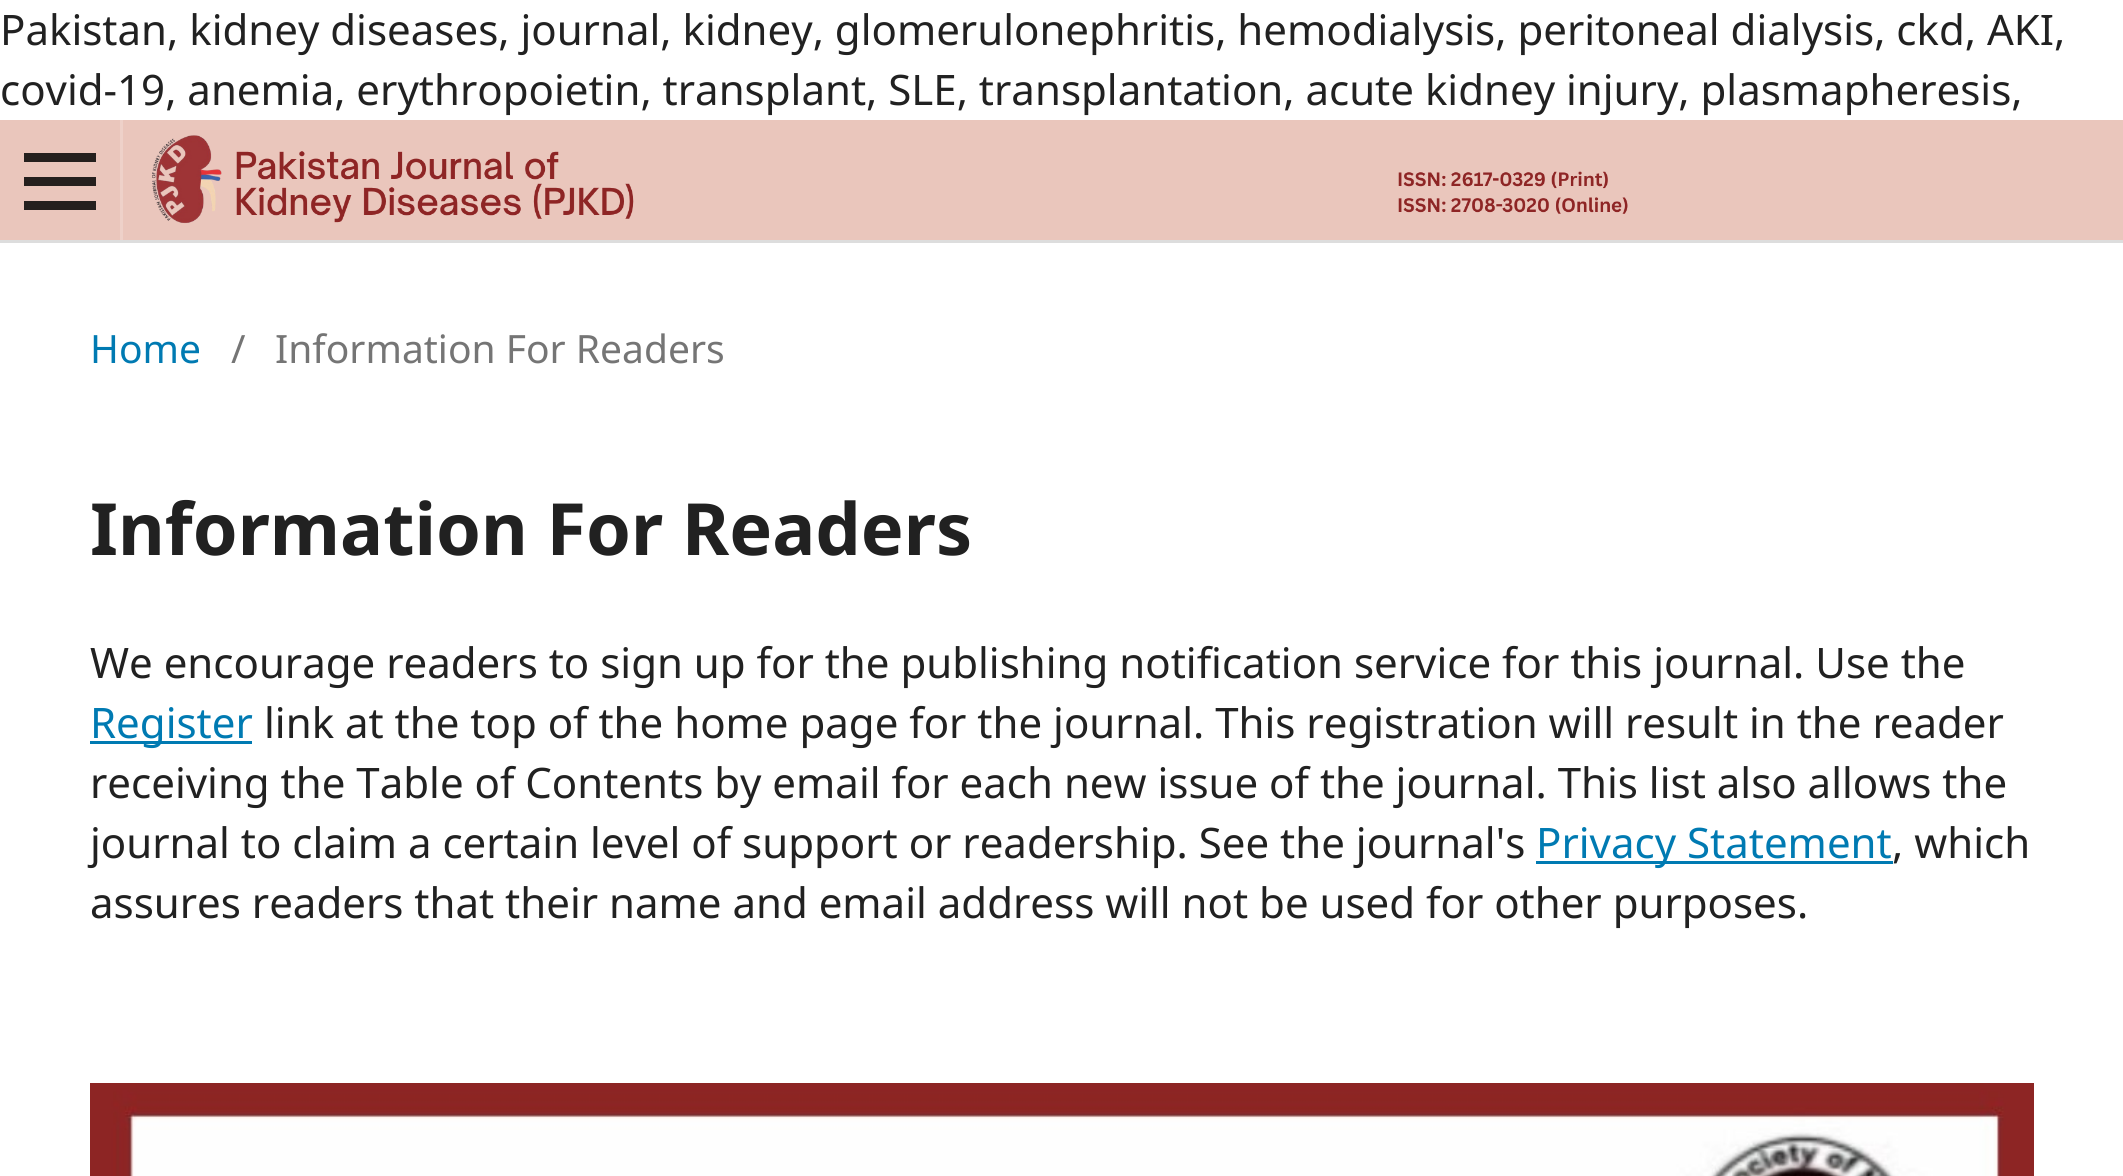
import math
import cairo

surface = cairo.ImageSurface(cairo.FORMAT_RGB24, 2123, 1176)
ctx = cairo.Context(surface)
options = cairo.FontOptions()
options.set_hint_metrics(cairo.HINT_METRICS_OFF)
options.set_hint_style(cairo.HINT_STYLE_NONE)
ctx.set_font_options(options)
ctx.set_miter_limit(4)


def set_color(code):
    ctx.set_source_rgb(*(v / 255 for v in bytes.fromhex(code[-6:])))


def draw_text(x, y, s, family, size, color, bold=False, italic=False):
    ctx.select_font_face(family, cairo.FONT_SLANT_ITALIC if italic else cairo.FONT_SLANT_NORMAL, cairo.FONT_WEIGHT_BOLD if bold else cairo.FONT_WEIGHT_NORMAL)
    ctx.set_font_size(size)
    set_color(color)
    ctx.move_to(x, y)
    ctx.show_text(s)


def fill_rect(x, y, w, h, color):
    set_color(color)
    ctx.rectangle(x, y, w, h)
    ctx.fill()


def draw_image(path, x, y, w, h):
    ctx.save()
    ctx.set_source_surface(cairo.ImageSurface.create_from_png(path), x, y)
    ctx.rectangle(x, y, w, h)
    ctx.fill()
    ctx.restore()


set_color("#ffffff")
ctx.paint()
draw_text(0, 45, "Pakistan, kidney diseases, journal, kidney, glomerulonephritis, hemodialysis, peritoneal dialysis, ckd, AKI,", "Noto Sans", 42, "#212121")
draw_text(0, 105, "covid-19, anemia, erythropoietin, transplant, SLE, transplantation, acute kidney injury, plasmapheresis,", "Noto Sans", 42, "#212121")
fill_rect(0, 120, 2123, 120, "#eac6bc")
fill_rect(0, 240, 2123, 3, "#dddddd")
fill_rect(120, 120, 3, 120, "#eed1c9")
fill_rect(24, 201, 72, 9, "#25201e")
fill_rect(24, 153, 72, 9, "#25201e")
fill_rect(24, 177, 72, 9, "#25201e")
draw_image("assets/img1.png", 152, 135, 1476, 89)
draw_text(90, 363, "Home", "Noto Sans", 39, "#007ab2")
draw_text(231, 363, "/", "Noto Sans", 39, "#757575")
draw_text(275, 363, "Information For Readers", "Noto Sans", 39, "#757575")
draw_text(90, 555, "Information For Readers", "Noto Sans", 72, "#212121", bold=True)
draw_text(90, 678, "We encourage readers to sign up for the publishing notification service for this journal. Use the", "Noto Sans", 42, "#212121")
fill_rect(90, 741, 162, 3, "#007ab2")
draw_text(90, 738, "Register", "Noto Sans", 42, "#007ab2")
draw_text(264, 738, "link at the top of the home page for the journal. This registration will result in the reader", "Noto Sans", 42, "#212121")
draw_text(90, 798, "receiving the Table of Contents by email for each new issue of the journal. This list also allows the", "Noto Sans", 42, "#212121")
draw_text(90, 858, "journal to claim a certain level of support or readership. See the journal's", "Noto Sans", 42, "#212121")
fill_rect(1536, 861, 357, 3, "#007ab2")
draw_text(1536, 858, "Privacy Statement", "Noto Sans", 42, "#007ab2")
draw_text(1892, 858, ", which", "Noto Sans", 42, "#212121")
draw_text(90, 918, "assures readers that their name and email address will not be used for other purposes.", "Noto Sans", 42, "#212121")
draw_image("assets/img2.png", 90, 1083, 1944, 93)
surface.write_to_png("output.png")
